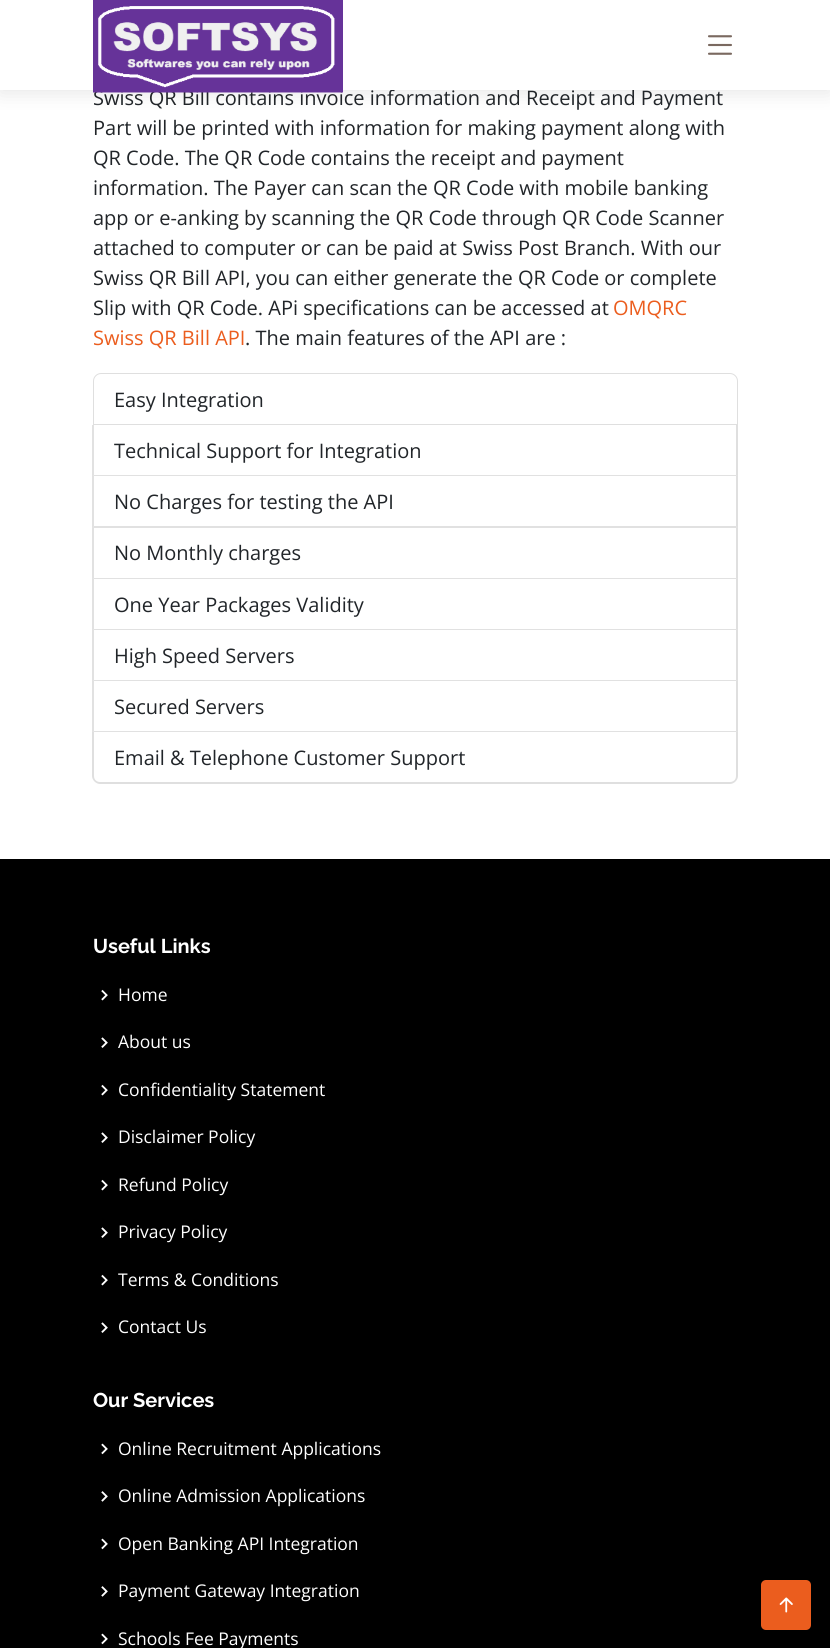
import math
import cairo

surface = cairo.ImageSurface(cairo.FORMAT_RGB24, 830, 1648)
ctx = cairo.Context(surface)
options = cairo.FontOptions()
options.set_hint_metrics(cairo.HINT_METRICS_OFF)
options.set_hint_style(cairo.HINT_STYLE_NONE)
ctx.set_font_options(options)
ctx.set_miter_limit(4)


def set_color(code):
    ctx.set_source_rgb(*(v / 255 for v in bytes.fromhex(code[-6:])))


def draw_text(x, y, s, family, size, color, bold=False, italic=False):
    ctx.select_font_face(family, cairo.FONT_SLANT_ITALIC if italic else cairo.FONT_SLANT_NORMAL, cairo.FONT_WEIGHT_BOLD if bold else cairo.FONT_WEIGHT_NORMAL)
    ctx.set_font_size(size)
    set_color(color)
    ctx.move_to(x, y)
    ctx.show_text(s)


def fill_rect(x, y, w, h, color):
    set_color(color)
    ctx.rectangle(x, y, w, h)
    ctx.fill()


def rounded_rect(x, y, w, h, r):
    ctx.new_sub_path()
    for i, (u, v) in enumerate([(x + w - r, y + h - r), (x + r, y + h - r), (x + r, y + r), (x + w - r, y + r)]):
        ctx.arc(u, v, r, i * math.pi / 2, (i + 1) * math.pi / 2)
    ctx.close_path()


def draw_shadow(x, y, w, h, r, blur, alpha):
    ctx.push_group_with_content(cairo.CONTENT_ALPHA)
    ctx.set_operator(cairo.OPERATOR_SOURCE)
    for i in range(15, -16, -2):
        e = blur * i / 6
        if min(w, h) + 2 * e > 0:
            ctx.set_source_rgba(0, 0, 0, alpha * math.erfc((i - 1) / 8.5) / 2)
            rounded_rect(x - e, y - e, w + 2 * e, h + 2 * e, max(0, min(r + e + blur * .6, min(w, h) / 2 + e)))
            ctx.fill()
    ctx.mask(ctx.pop_group())


def draw_image(path, x, y, w, h):
    ctx.save()
    ctx.set_source_surface(cairo.ImageSurface.create_from_png(path), x, y)
    ctx.rectangle(x, y, w, h)
    ctx.fill()
    ctx.restore()


set_color("#ffffff")
ctx.paint()
set_color("#000000")
draw_shadow(0, 3, 830, 90, 0, 9.5, 0.1)
draw_text(93, 105, "Swiss QR Bill contains invoice information and Receipt and Payment", "Open Sans", 20, "#212529")
fill_rect(0, 0, 830, 90, "#ffffff")
draw_image("assets/img1.png", 93, 0, 250, 93)
draw_image("assets/img2.png", 708, 35, 24, 20)
draw_text(93, 135, "Part will be printed with information for making payment along with", "Open Sans", 20, "#212529")
draw_text(93, 165, "QR Code. The QR Code contains the receipt and payment", "Open Sans", 20, "#212529")
draw_text(93, 195, "information. The Payer can scan the QR Code with mobile banking", "Open Sans", 20, "#212529")
draw_text(93, 225, "app or e-anking by scanning the QR Code through QR Code Scanner", "Open Sans", 20, "#212529")
draw_text(93, 255, "attached to computer or can be paid at Swiss Post Branch. With our", "Open Sans", 20, "#212529")
draw_text(93, 285, "Swiss QR Bill API, you can either generate the QR Code or complete", "Open Sans", 20, "#212529")
draw_text(93, 315, "Slip with QR Code. APi specifications can be accessed at", "Open Sans", 20, "#212529")
draw_text(613, 315, "OMQRC", "Open Sans", 20, "#eb5d1e")
draw_text(93, 345, "Swiss QR Bill API", "Open Sans", 20, "#eb5d1e")
draw_text(245, 345, ". The main features of the API are :", "Open Sans", 20, "#212529")
ctx.new_path()
ctx.move_to(101, 373.5)
ctx.line_to(730, 373.5)
ctx.curve_to(734, 373.5, 737.5, 377, 737.5, 381)
ctx.line_to(737.5, 424.5)
ctx.line_to(93.5, 424.5)
ctx.line_to(93.5, 381)
ctx.curve_to(93.5, 377, 97, 373.5, 101, 373.5)
ctx.close_path()
set_color("#dfdfdf")
ctx.set_line_width(1)
ctx.stroke()
draw_text(114, 407, "Easy Integration", "Open Sans", 20, "#212529")
set_color("#dfdfdf")
ctx.new_path()
ctx.move_to(738, 425)
ctx.line_to(738, 476)
ctx.line_to(736, 475)
ctx.line_to(736, 425)
ctx.close_path()
ctx.fill()
ctx.set_source_rgba(0, 0, 0, 0.12)
ctx.new_path()
ctx.move_to(738, 476)
ctx.line_to(92, 476)
ctx.line_to(94, 475)
ctx.line_to(736, 475)
ctx.close_path()
ctx.fill()
ctx.new_path()
ctx.move_to(92, 476)
ctx.line_to(92, 425)
ctx.line_to(94, 425)
ctx.line_to(94, 475)
ctx.close_path()
ctx.fill()
draw_text(114, 458, "Technical Support for Integration", "Open Sans", 20, "#212529")
set_color("#dfdfdf")
ctx.new_path()
ctx.move_to(738, 476)
ctx.line_to(738, 528)
ctx.line_to(736, 526)
ctx.line_to(736, 476)
ctx.close_path()
ctx.fill()
ctx.set_source_rgba(0, 0, 0, 0.12)
ctx.new_path()
ctx.move_to(738, 528)
ctx.line_to(92, 528)
ctx.line_to(94, 526)
ctx.line_to(736, 526)
ctx.close_path()
ctx.fill()
ctx.new_path()
ctx.move_to(92, 528)
ctx.line_to(92, 476)
ctx.line_to(94, 476)
ctx.line_to(94, 526)
ctx.close_path()
ctx.fill()
draw_text(114, 509, "No Charges for testing the API", "Open Sans", 20, "#212529")
set_color("#dfdfdf")
ctx.new_path()
ctx.move_to(738, 528)
ctx.line_to(738, 579)
ctx.line_to(736, 578)
ctx.line_to(736, 528)
ctx.close_path()
ctx.fill()
ctx.set_source_rgba(0, 0, 0, 0.12)
ctx.new_path()
ctx.move_to(738, 579)
ctx.line_to(92, 579)
ctx.line_to(94, 578)
ctx.line_to(736, 578)
ctx.close_path()
ctx.fill()
ctx.new_path()
ctx.move_to(92, 579)
ctx.line_to(92, 528)
ctx.line_to(94, 528)
ctx.line_to(94, 578)
ctx.close_path()
ctx.fill()
draw_text(114, 560, "No Monthly charges", "Open Sans", 20, "#212529")
set_color("#dfdfdf")
ctx.new_path()
ctx.move_to(738, 579)
ctx.line_to(738, 630)
ctx.line_to(736, 629)
ctx.line_to(736, 579)
ctx.close_path()
ctx.fill()
ctx.set_source_rgba(0, 0, 0, 0.12)
ctx.new_path()
ctx.move_to(738, 630)
ctx.line_to(92, 630)
ctx.line_to(94, 629)
ctx.line_to(736, 629)
ctx.close_path()
ctx.fill()
ctx.new_path()
ctx.move_to(92, 630)
ctx.line_to(92, 579)
ctx.line_to(94, 579)
ctx.line_to(94, 629)
ctx.close_path()
ctx.fill()
draw_text(114, 612, "One Year Packages Validity", "Open Sans", 20, "#212529")
set_color("#dfdfdf")
ctx.new_path()
ctx.move_to(738, 630)
ctx.line_to(738, 681)
ctx.line_to(736, 680)
ctx.line_to(736, 630)
ctx.close_path()
ctx.fill()
ctx.set_source_rgba(0, 0, 0, 0.12)
ctx.new_path()
ctx.move_to(738, 681)
ctx.line_to(92, 681)
ctx.line_to(94, 680)
ctx.line_to(736, 680)
ctx.close_path()
ctx.fill()
ctx.new_path()
ctx.move_to(92, 681)
ctx.line_to(92, 630)
ctx.line_to(94, 630)
ctx.line_to(94, 680)
ctx.close_path()
ctx.fill()
draw_text(114, 663, "High Speed Servers", "Open Sans", 20, "#212529")
set_color("#dfdfdf")
ctx.new_path()
ctx.move_to(738, 681)
ctx.line_to(738, 732)
ctx.line_to(736, 731)
ctx.line_to(736, 681)
ctx.close_path()
ctx.fill()
ctx.set_source_rgba(0, 0, 0, 0.12)
ctx.new_path()
ctx.move_to(738, 732)
ctx.line_to(92, 732)
ctx.line_to(94, 731)
ctx.line_to(736, 731)
ctx.close_path()
ctx.fill()
ctx.new_path()
ctx.move_to(92, 732)
ctx.line_to(92, 681)
ctx.line_to(94, 681)
ctx.line_to(94, 731)
ctx.close_path()
ctx.fill()
draw_text(114, 714, "Secured Servers", "Open Sans", 20, "#212529")
set_color("#dfdfdf")
ctx.set_fill_rule(cairo.FILL_RULE_EVEN_ODD)
ctx.new_path()
ctx.move_to(92, 732)
ctx.line_to(738, 732)
ctx.line_to(738, 776)
ctx.curve_to(738, 780, 734, 784, 730, 784)
ctx.line_to(100, 784)
ctx.curve_to(96, 784, 92, 780, 92, 776)
ctx.close_path()
ctx.move_to(94, 732)
ctx.line_to(736, 732)
ctx.line_to(736, 776)
ctx.curve_to(736, 780, 733, 782, 730, 782)
ctx.line_to(100, 782)
ctx.curve_to(97, 782, 94, 780, 94, 776)
ctx.close_path()
ctx.fill()
draw_text(114, 765, "Email & Telephone Customer Support", "Open Sans", 20, "#212529")
fill_rect(0, 859, 830, 789, "#000000")
draw_text(93, 953, "Useful Links", "Raleway", 20, "#ffffff", bold=True)
draw_image("assets/img3.png", 101, 989, 7, 12)
draw_text(118, 1001, "Home", "Open Sans", 17.5, "#ffffff")
draw_image("assets/img4.png", 101, 1037, 7, 11)
draw_text(118, 1048, "About us", "Open Sans", 17.5, "#ffffff")
draw_image("assets/img3.png", 101, 1084, 7, 12)
draw_text(118, 1096, "Confidentiality Statement", "Open Sans", 17.5, "#ffffff")
draw_image("assets/img4.png", 101, 1132, 7, 11)
draw_text(118, 1143, "Disclaimer Policy", "Open Sans", 17.5, "#ffffff")
draw_image("assets/img3.png", 101, 1179, 7, 12)
draw_text(118, 1191, "Refund Policy", "Open Sans", 17.5, "#ffffff")
draw_image("assets/img4.png", 101, 1227, 7, 11)
draw_text(118, 1238, "Privacy Policy", "Open Sans", 17.5, "#ffffff")
draw_image("assets/img3.png", 101, 1274, 7, 12)
draw_text(118, 1286, "Terms & Conditions", "Open Sans", 17.5, "#ffffff")
draw_image("assets/img4.png", 101, 1322, 7, 11)
draw_text(118, 1333, "Contact Us", "Open Sans", 17.5, "#ffffff")
draw_text(93, 1407, "Our Services", "Raleway", 20, "#ffffff", bold=True)
draw_image("assets/img5.png", 101, 1443, 7, 12)
draw_text(118, 1455, "Online Recruitment Applications", "Open Sans", 17.5, "#ffffff")
draw_image("assets/img6.png", 101, 1491, 7, 11)
draw_text(118, 1502, "Online Admission Applications", "Open Sans", 17.5, "#ffffff")
draw_image("assets/img5.png", 101, 1538, 7, 12)
draw_text(118, 1550, "Open Banking API Integration", "Open Sans", 17.5, "#ffffff")
draw_image("assets/img6.png", 101, 1586, 7, 11)
draw_text(118, 1597, "Payment Gateway Integration", "Open Sans", 17.5, "#ffffff")
draw_image("assets/img5.png", 101, 1633, 7, 12)
draw_text(118, 1645, "Schools Fee Payments", "Open Sans", 17.5, "#ffffff")
set_color("#eb5d1e")
rounded_rect(761, 1580, 50, 50, 5)
ctx.fill()
draw_image("assets/img7.png", 779, 1597, 14, 16)
surface.write_to_png("output.png")
